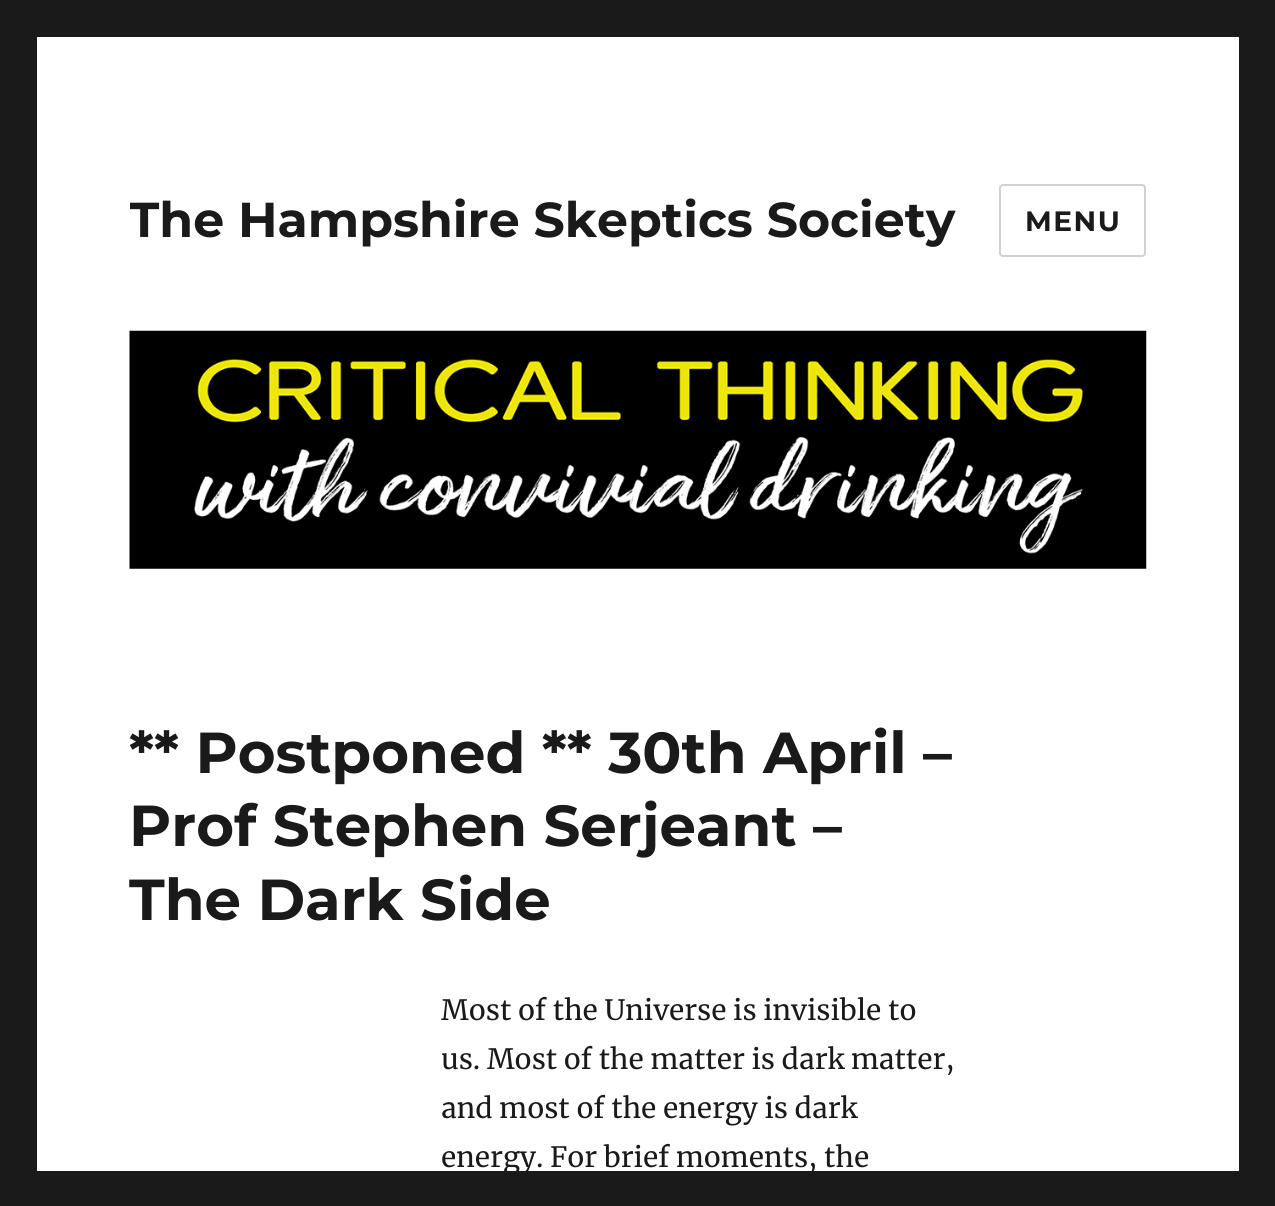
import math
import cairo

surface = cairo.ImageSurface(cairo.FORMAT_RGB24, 1275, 1206)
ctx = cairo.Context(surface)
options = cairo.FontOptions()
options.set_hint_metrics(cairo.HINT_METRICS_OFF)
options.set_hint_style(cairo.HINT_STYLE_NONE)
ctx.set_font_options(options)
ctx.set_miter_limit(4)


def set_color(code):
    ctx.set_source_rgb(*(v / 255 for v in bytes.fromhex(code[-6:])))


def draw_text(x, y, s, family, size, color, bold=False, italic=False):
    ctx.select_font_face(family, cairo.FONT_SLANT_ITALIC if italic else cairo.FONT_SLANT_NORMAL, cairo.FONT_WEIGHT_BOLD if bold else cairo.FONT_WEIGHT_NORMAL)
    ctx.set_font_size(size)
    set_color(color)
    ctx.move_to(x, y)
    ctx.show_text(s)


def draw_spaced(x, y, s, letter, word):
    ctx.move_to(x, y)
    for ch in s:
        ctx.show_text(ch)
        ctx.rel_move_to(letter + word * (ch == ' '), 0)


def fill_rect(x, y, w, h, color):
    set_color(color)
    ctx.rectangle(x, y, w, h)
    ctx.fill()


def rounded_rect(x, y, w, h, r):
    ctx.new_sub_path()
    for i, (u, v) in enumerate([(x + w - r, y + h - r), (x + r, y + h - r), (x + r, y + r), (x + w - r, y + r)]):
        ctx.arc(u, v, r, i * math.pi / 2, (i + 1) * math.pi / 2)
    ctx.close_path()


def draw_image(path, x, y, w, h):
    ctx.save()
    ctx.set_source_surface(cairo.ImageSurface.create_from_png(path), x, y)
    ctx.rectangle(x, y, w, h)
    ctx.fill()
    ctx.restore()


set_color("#1a1a1a")
ctx.paint()
fill_rect(37, 37, 1202, 1134, "#ffffff")
ctx.save()
ctx.rectangle(130, 191, 826, 61)
ctx.clip()
draw_text(129, 237, "The Hampshire Skeptics Society", "Montserrat Thin", 49, "#1a1a1a")
ctx.restore()
rounded_rect(1000, 185, 145, 71, 3)
set_color("#d1d1d1")
ctx.stroke()
ctx.select_font_face("Montserrat Thin")
ctx.set_font_size(28)
set_color("#1a1a1a")
draw_spaced(1025, 231, "MENU", 1.5, 0)
draw_image("assets/img1.png", 129, 330, 1018, 239)
draw_text(129, 773, "** Postponed ** 30th April –", "Montserrat Thin", 57.75, "#1a1a1a")
draw_text(129, 846, "Prof Stephen Serjeant –", "Montserrat Thin", 57.75, "#1a1a1a")
draw_text(129, 920, "The Dark Side", "Montserrat Thin", 57.75, "#1a1a1a")
draw_text(441, 1020, "Most of the Universe is invisible to", "Merriweather", 28, "#1a1a1a")
draw_text(441, 1069, "us. Most of the matter is dark matter,", "Merriweather", 28, "#1a1a1a")
draw_text(441, 1118, "and most of the energy is dark", "Merriweather", 28, "#1a1a1a")
draw_text(441, 1167, "energy. For brief moments, the", "Merriweather", 28, "#1a1a1a")
surface.write_to_png("output.png")
